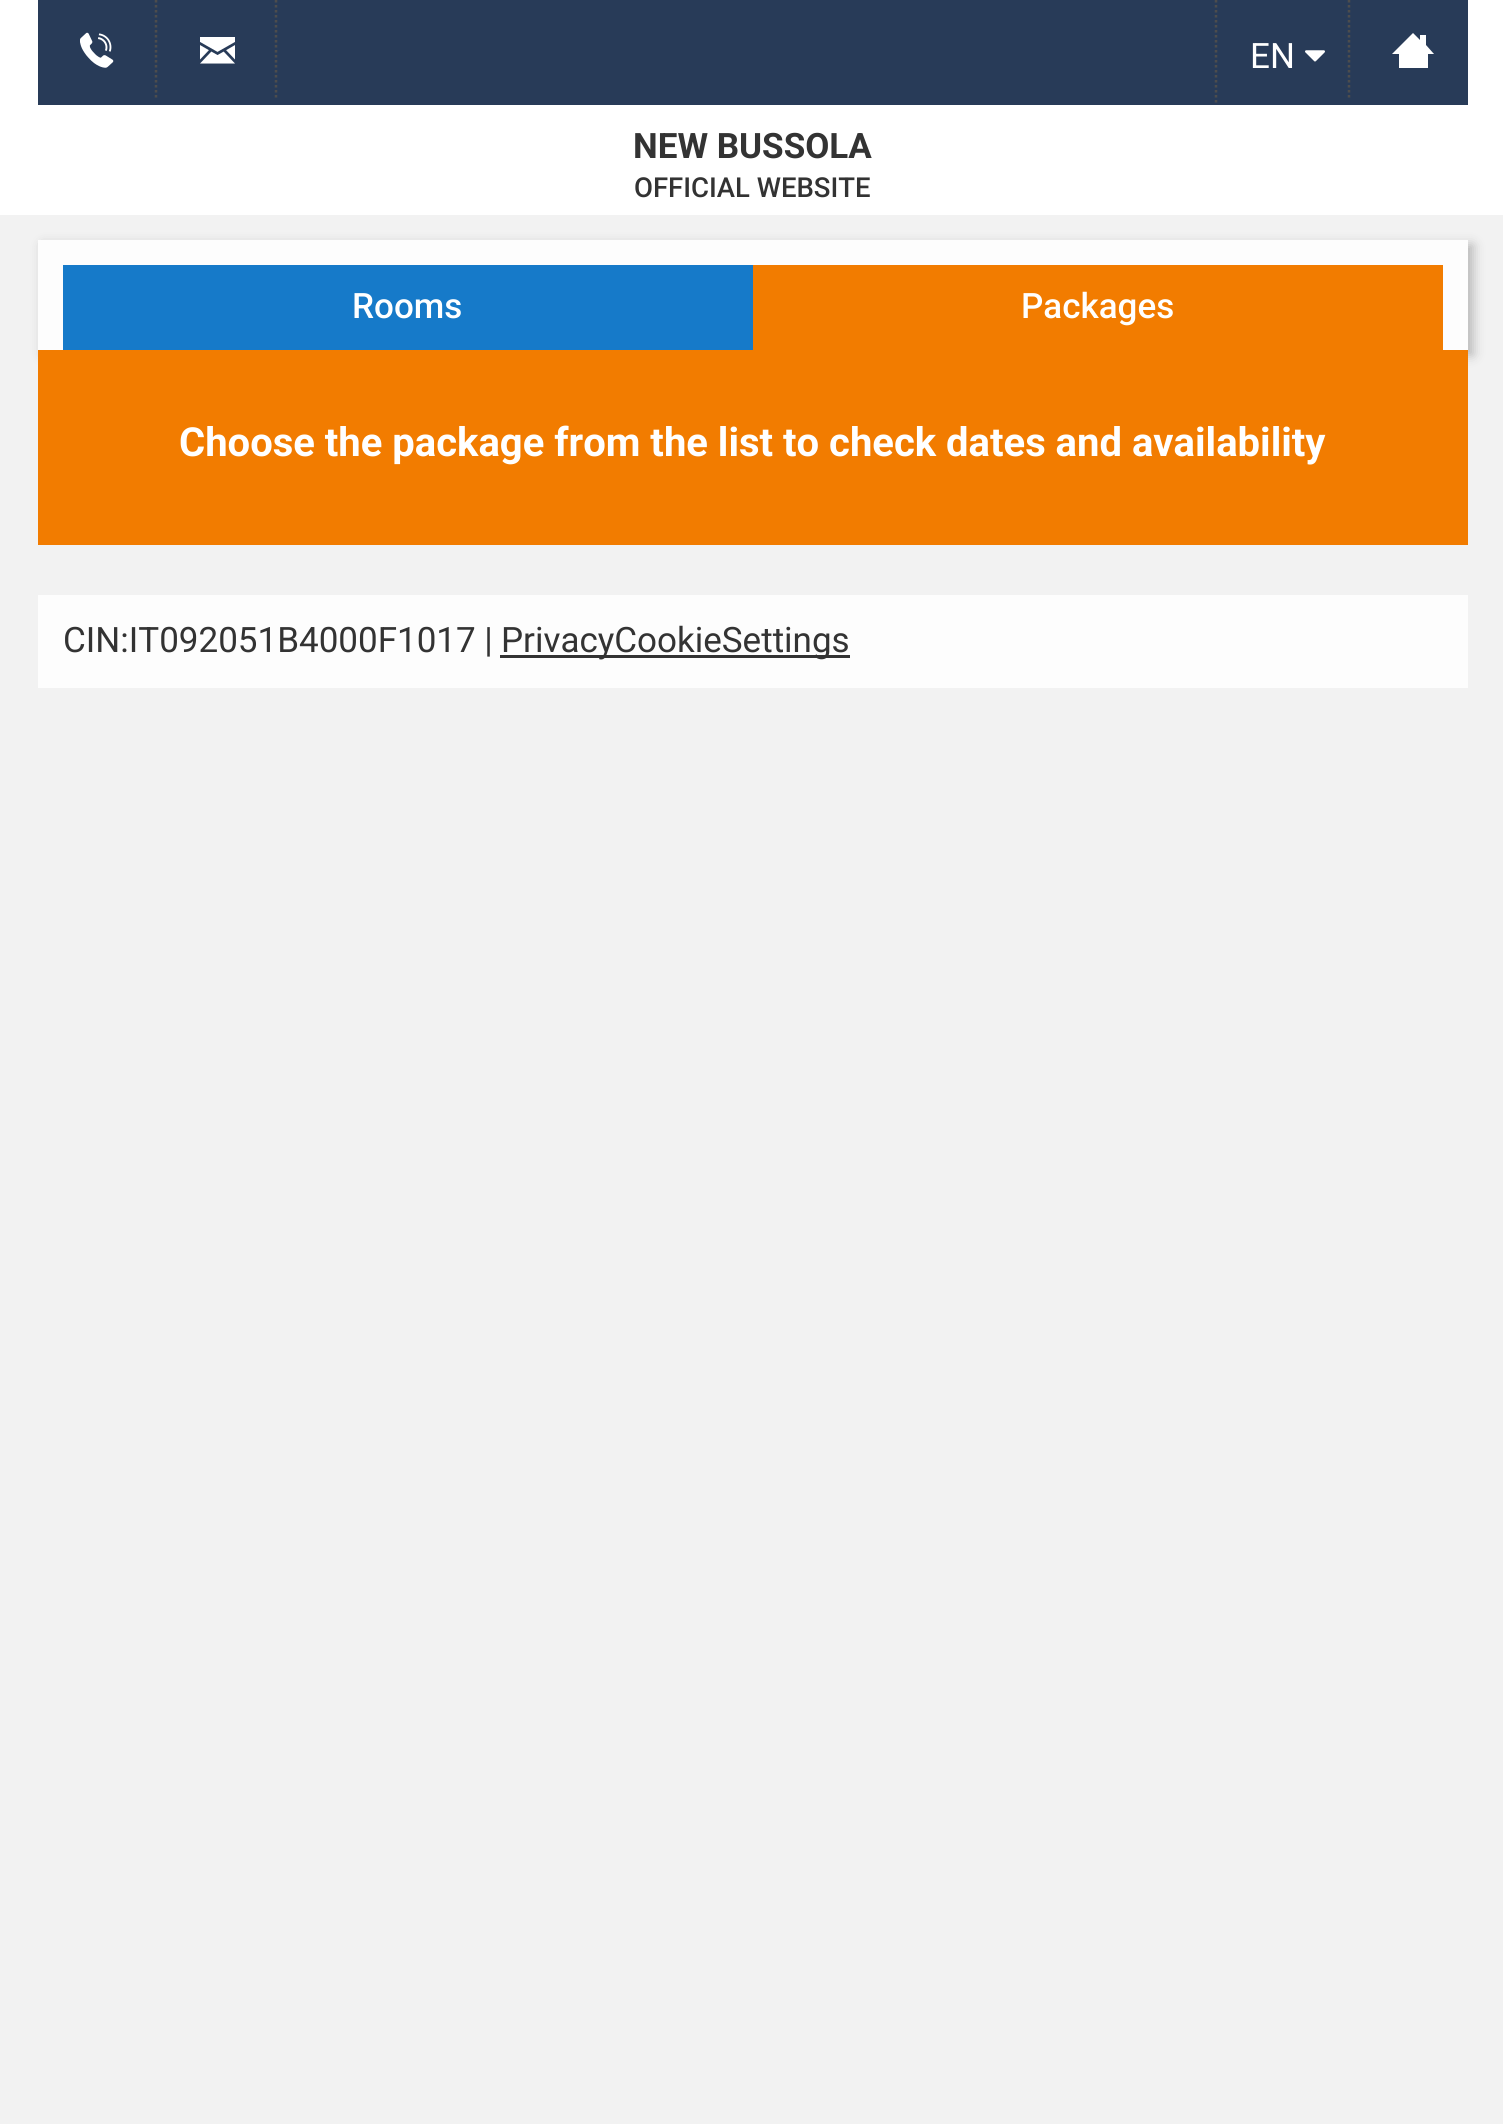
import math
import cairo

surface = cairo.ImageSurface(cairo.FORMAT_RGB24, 1503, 2124)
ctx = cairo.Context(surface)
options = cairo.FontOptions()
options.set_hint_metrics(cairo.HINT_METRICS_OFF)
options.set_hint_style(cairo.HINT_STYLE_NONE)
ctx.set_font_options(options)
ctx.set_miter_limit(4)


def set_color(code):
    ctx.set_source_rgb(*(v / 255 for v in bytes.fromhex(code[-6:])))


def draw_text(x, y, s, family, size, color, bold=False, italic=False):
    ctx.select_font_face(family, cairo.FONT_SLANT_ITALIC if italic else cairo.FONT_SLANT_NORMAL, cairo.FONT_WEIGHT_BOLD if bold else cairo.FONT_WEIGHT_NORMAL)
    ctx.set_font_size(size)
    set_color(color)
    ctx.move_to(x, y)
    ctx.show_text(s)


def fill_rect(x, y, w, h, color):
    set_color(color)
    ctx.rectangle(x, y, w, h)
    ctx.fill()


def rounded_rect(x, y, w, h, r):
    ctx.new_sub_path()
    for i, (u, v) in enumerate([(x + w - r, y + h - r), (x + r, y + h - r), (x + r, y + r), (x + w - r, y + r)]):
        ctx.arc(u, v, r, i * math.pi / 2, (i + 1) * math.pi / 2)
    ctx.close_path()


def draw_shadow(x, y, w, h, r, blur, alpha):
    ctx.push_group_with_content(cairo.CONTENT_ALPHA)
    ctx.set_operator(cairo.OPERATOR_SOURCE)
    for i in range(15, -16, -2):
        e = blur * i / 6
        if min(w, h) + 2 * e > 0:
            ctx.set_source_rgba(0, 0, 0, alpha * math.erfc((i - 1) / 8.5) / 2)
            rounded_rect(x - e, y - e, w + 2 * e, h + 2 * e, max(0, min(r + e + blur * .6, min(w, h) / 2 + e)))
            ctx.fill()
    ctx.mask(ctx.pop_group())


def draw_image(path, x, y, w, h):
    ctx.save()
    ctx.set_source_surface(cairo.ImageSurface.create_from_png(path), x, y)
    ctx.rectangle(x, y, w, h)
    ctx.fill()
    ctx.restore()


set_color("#f2f2f2")
ctx.paint()
fill_rect(0, 0, 1503, 215, "#ffffff")
fill_rect(38, 0, 1430, 105, "#283b58")
ctx.new_path()
ctx.move_to(156, 0)
ctx.line_to(156, 100)
set_color("#4d4d4d")
ctx.set_line_width(2.5)
ctx.set_dash([2.5, 2.5])
ctx.stroke()
draw_image("assets/img1.png", 80, 32, 34, 36)
ctx.new_path()
ctx.move_to(276, 0)
ctx.line_to(276, 100)
ctx.stroke()
draw_image("assets/img2.png", 200, 37, 35, 27)
ctx.new_path()
ctx.move_to(1216, 0)
ctx.line_to(1216, 105)
ctx.stroke()
draw_text(1250, 68, "EN", "Roboto", 35, "#ffffff")
draw_image("assets/img3.png", 1305, 50, 20, 12)
ctx.new_path()
ctx.move_to(1349, 0)
ctx.line_to(1349, 100)
set_color("#4d4d4d")
ctx.stroke()
set_color("#ffffff")
ctx.new_path()
ctx.move_to(1392, 54)
ctx.line_to(1399, 54)
ctx.line_to(1399, 68)
ctx.line_to(1428, 68)
ctx.line_to(1428, 54)
ctx.line_to(1434, 54)
ctx.line_to(1426, 45)
ctx.line_to(1426, 35)
ctx.line_to(1420, 35)
ctx.line_to(1420, 40)
ctx.line_to(1413, 33)
ctx.close_path()
ctx.fill()
draw_text(633, 158, "NEW BUSSOLA", "Roboto", 35, "#333333", bold=True)
draw_text(634, 197, "OFFICIAL WEBSITE", "Roboto Medium", 27.5, "#333333")
ctx.save()
ctx.set_fill_rule(cairo.FILL_RULE_EVEN_ODD)
ctx.new_path()
ctx.move_to(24, 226)
ctx.line_to(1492, 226)
ctx.line_to(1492, 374)
ctx.line_to(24, 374)
ctx.close_path()
ctx.move_to(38, 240)
ctx.line_to(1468, 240)
ctx.line_to(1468, 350)
ctx.line_to(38, 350)
ctx.close_path()
ctx.clip()
set_color("#000000")
draw_shadow(43, 245, 1430, 110, 0, 6, 0.25)
ctx.restore()
ctx.set_source_rgba(1, 1, 1, 0.85)
ctx.rectangle(38, 240, 1430, 110)
ctx.fill()
fill_rect(63, 265, 690, 85, "#167ac9")
draw_text(352, 318, "Rooms", "Roboto Medium", 35, "#ffffff")
fill_rect(753, 265, 690, 85, "#f27c00")
draw_text(1021, 318, "Packages", "Roboto Medium", 35, "#ffffff")
fill_rect(38, 350, 1430, 195, "#f27c00")
draw_text(179, 456, "Choose the package from the list to check dates and availability", "Roboto", 40, "#ffffff", bold=True)
fill_rect(38, 595, 1430, 93, "#fdfdfd")
draw_text(63, 652, "CIN:IT092051B4000F1017 |", "Roboto", 35, "#333333")
fill_rect(500, 655, 350, 3, "#333333")
draw_text(501, 652, "PrivacyCookieSettings", "Roboto", 35, "#333333")
surface.write_to_png("output.png")
